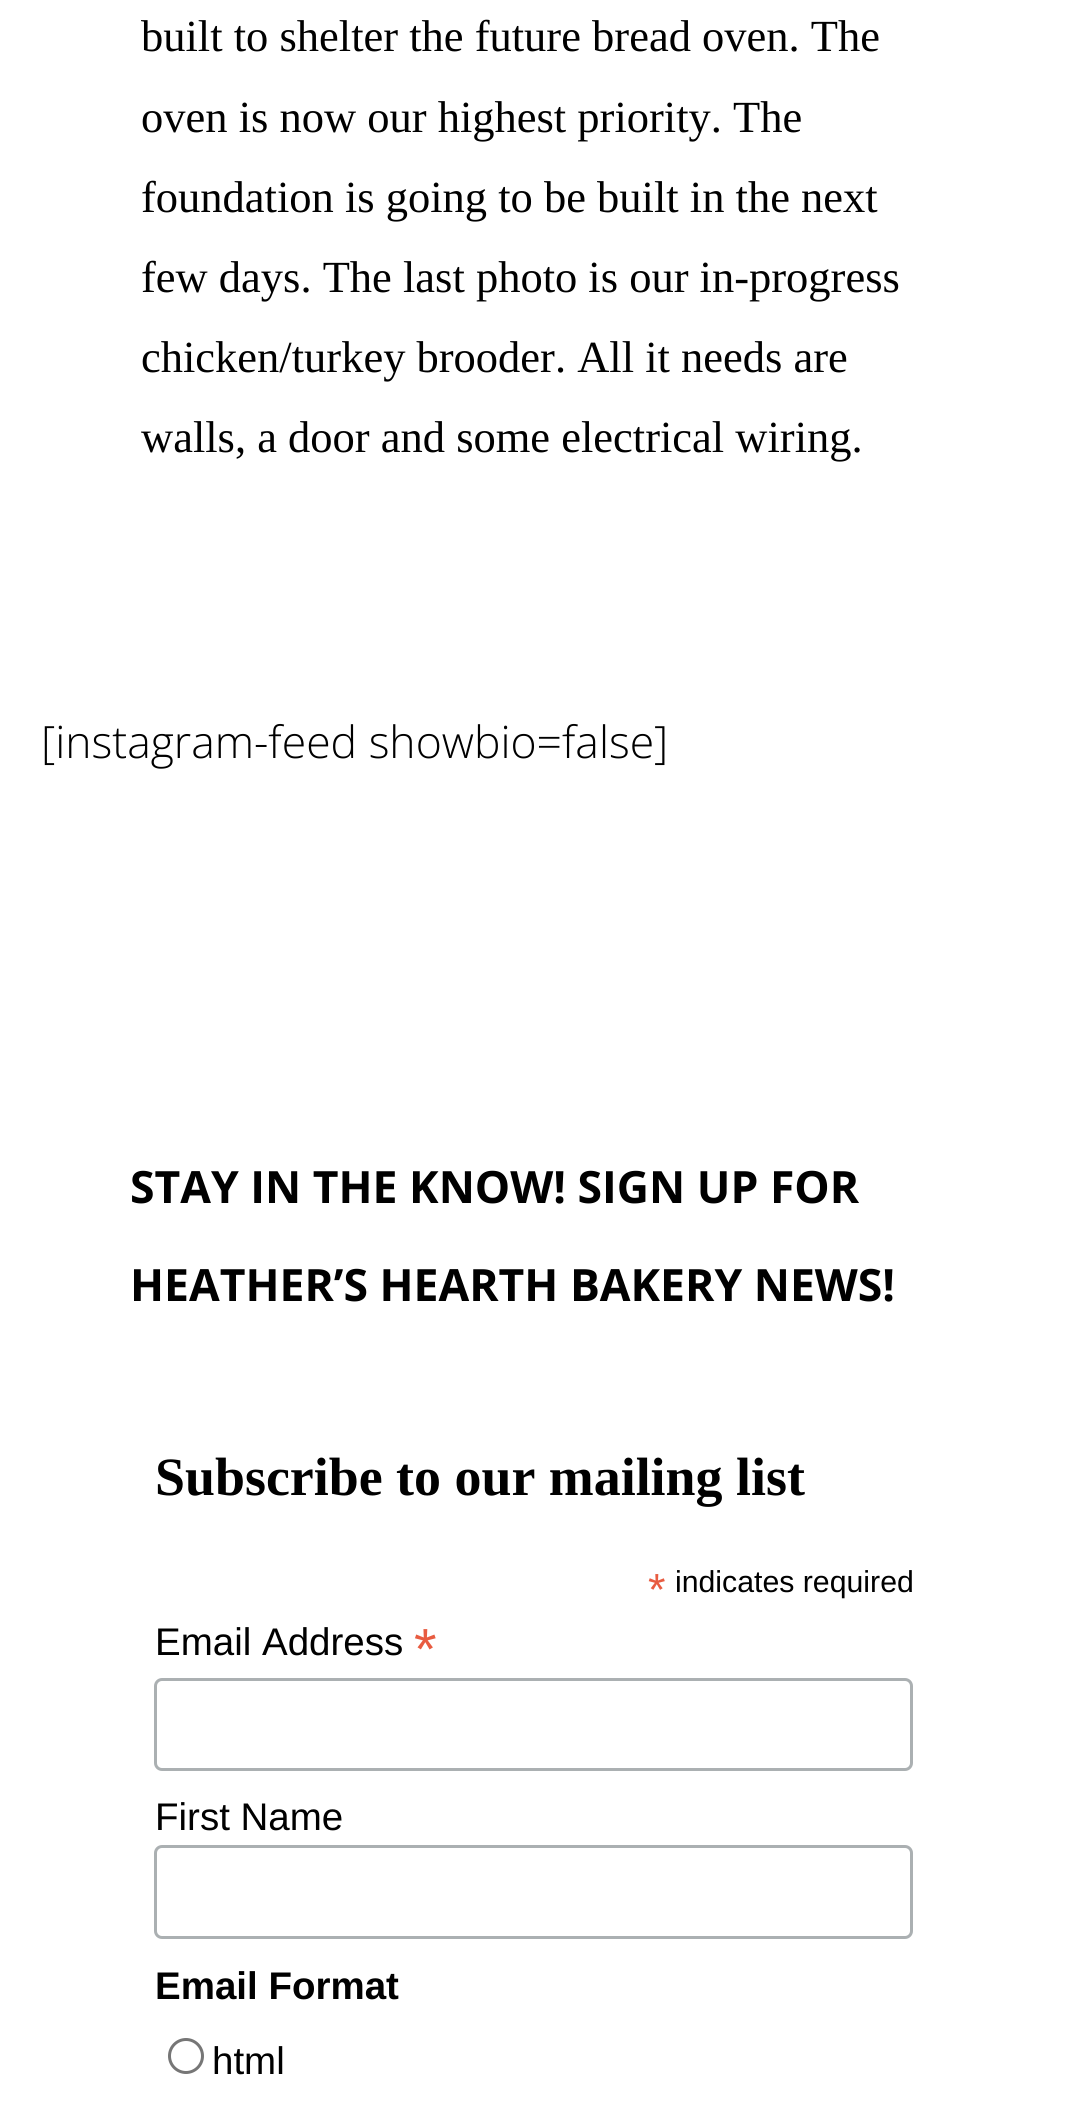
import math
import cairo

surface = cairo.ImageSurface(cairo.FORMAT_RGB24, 1073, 2105)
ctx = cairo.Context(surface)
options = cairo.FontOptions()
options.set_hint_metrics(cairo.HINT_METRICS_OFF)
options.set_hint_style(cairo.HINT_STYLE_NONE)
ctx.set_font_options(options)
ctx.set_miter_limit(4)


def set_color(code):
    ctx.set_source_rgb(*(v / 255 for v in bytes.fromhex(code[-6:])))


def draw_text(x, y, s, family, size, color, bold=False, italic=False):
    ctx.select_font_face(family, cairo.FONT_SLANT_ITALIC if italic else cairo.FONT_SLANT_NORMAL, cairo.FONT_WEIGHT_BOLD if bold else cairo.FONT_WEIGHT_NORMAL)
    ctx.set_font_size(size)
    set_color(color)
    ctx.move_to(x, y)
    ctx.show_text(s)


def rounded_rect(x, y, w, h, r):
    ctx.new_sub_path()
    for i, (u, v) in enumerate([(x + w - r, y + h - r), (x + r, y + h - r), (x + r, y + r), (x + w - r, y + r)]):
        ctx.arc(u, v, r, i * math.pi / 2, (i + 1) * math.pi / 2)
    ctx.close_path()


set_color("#ffffff")
ctx.paint()
draw_text(141, 51, "built to shelter the future bread oven. The", "Liberation Serif", 44.5, "#000000")
draw_text(141, 132, "oven is now our highest priority. The", "Liberation Serif", 44.5, "#000000")
draw_text(141, 212, "foundation is going to be built in the next", "Liberation Serif", 44.5, "#000000")
draw_text(141, 292, "few days. The last photo is our in-progress", "Liberation Serif", 44.5, "#000000")
draw_text(141, 372, "chicken/turkey brooder. All it needs are", "Liberation Serif", 44.5, "#000000")
draw_text(141, 452, "walls, a door and some electrical wiring.", "Liberation Serif", 44.5, "#000000")
draw_text(41, 758, "[instagram-feed showbio=false]", "Open Sans Light", 44.5, "#000000")
draw_text(130, 1203, "STAY IN THE KNOW! SIGN UP FOR", "Open Sans", 44.5, "#000000", bold=True)
draw_text(130, 1301, "HEATHER’S HEARTH BAKERY NEWS!", "Open Sans", 44.5, "#000000", bold=True)
draw_text(155, 1495, "Subscribe to our mailing list", "Liberation Serif", 53.9, "#000000", bold=True)
draw_text(648, 1605, "*", "Liberation Sans", 45, "#e85c41")
draw_text(675, 1592, "indicates required", "Liberation Sans", 30.25, "#000000")
draw_text(155, 1655, "Email Address", "Liberation Sans", 38.5, "#000000")
draw_text(414, 1669, "*", "Liberation Sans", 58, "#e85c41")
rounded_rect(155.5, 1679.5, 756, 90, 6.5)
set_color("#abb0b2")
ctx.set_line_width(3)
ctx.stroke()
draw_text(155, 1830, "First Name", "Liberation Sans", 38.5, "#000000")
rounded_rect(155.5, 1846.5, 756, 91, 6.5)
set_color("#abb0b2")
ctx.stroke()
draw_text(155, 1999, "Email Format", "Liberation Sans", 38.5, "#000000", bold=True)
ctx.new_path()
ctx.arc(186, 2056, 16.5, 0, 2 * math.pi)
set_color("#767676")
ctx.stroke()
draw_text(212, 2074, "html", "Liberation Sans", 38.5, "#000000")
surface.write_to_png("output.png")
